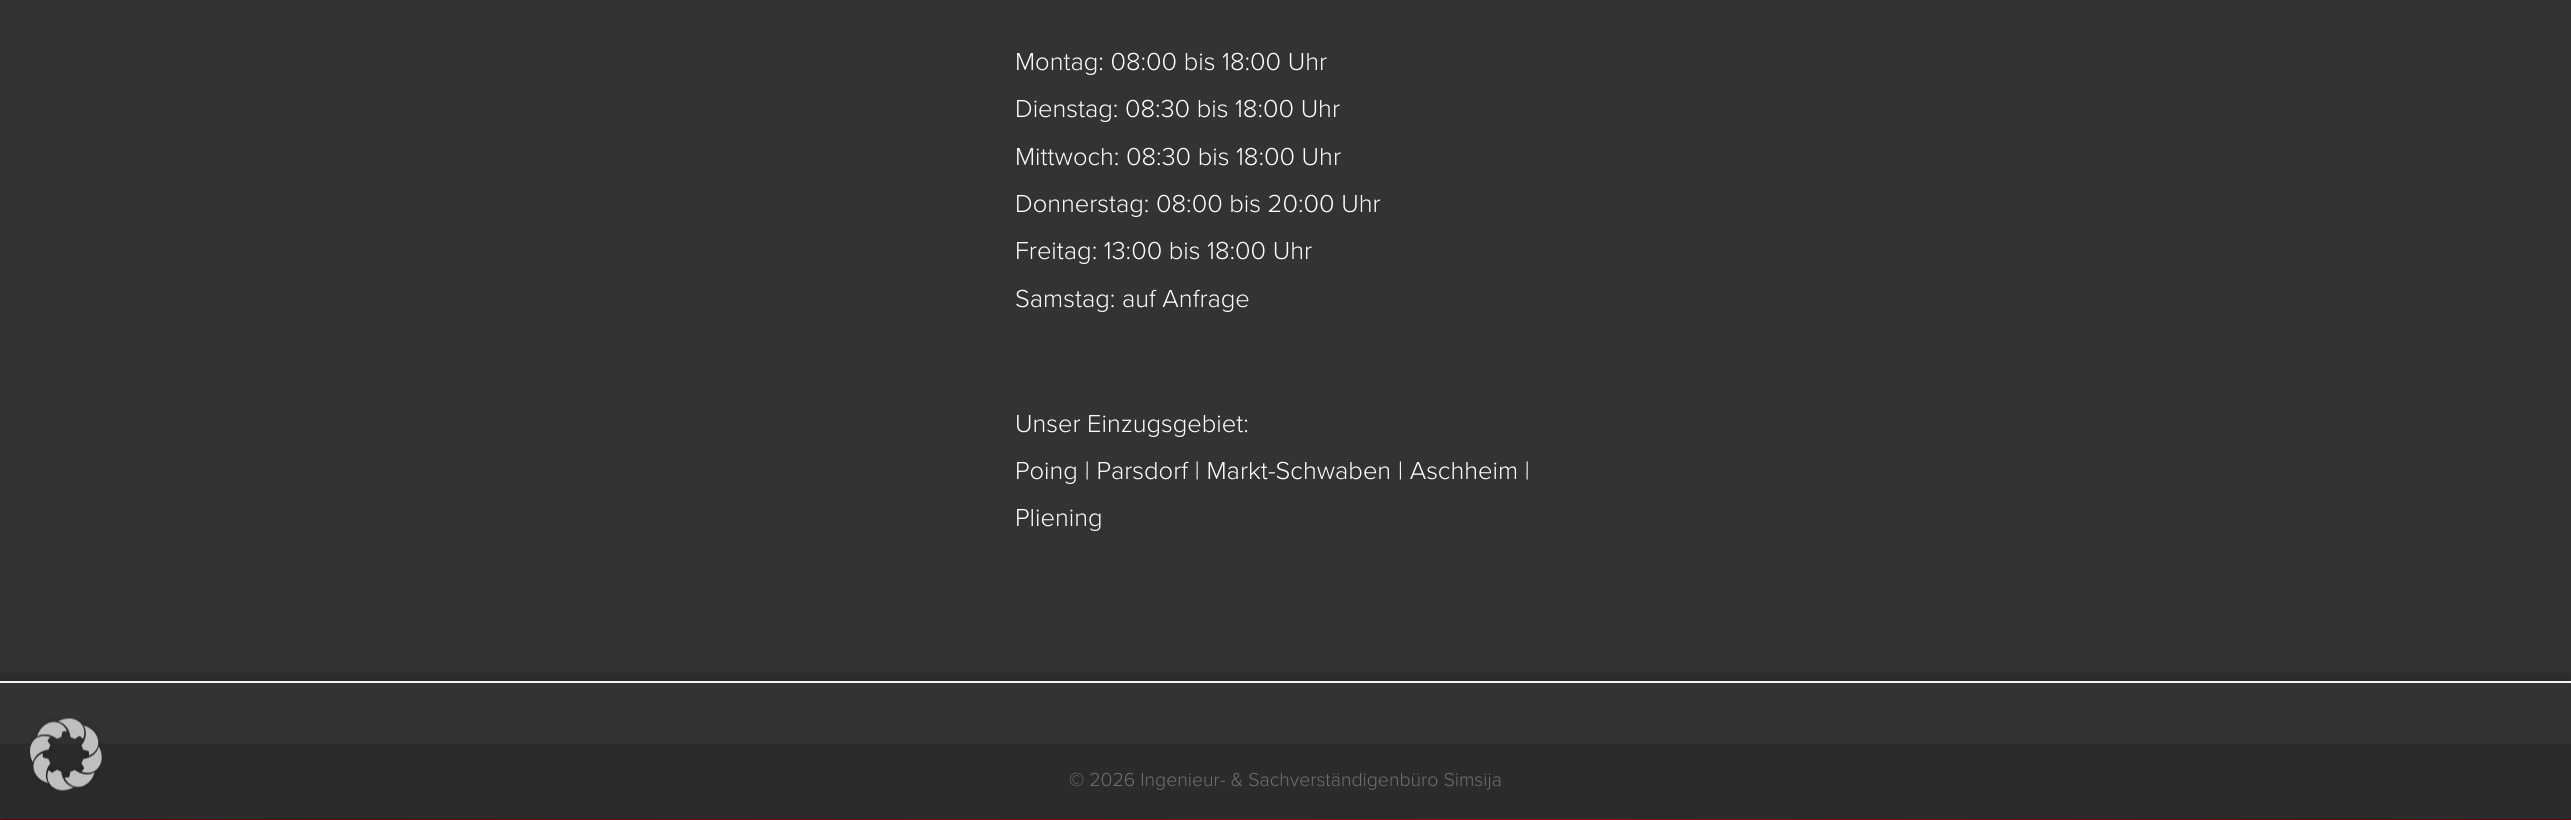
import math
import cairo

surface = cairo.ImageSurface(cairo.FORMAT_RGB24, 2571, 820)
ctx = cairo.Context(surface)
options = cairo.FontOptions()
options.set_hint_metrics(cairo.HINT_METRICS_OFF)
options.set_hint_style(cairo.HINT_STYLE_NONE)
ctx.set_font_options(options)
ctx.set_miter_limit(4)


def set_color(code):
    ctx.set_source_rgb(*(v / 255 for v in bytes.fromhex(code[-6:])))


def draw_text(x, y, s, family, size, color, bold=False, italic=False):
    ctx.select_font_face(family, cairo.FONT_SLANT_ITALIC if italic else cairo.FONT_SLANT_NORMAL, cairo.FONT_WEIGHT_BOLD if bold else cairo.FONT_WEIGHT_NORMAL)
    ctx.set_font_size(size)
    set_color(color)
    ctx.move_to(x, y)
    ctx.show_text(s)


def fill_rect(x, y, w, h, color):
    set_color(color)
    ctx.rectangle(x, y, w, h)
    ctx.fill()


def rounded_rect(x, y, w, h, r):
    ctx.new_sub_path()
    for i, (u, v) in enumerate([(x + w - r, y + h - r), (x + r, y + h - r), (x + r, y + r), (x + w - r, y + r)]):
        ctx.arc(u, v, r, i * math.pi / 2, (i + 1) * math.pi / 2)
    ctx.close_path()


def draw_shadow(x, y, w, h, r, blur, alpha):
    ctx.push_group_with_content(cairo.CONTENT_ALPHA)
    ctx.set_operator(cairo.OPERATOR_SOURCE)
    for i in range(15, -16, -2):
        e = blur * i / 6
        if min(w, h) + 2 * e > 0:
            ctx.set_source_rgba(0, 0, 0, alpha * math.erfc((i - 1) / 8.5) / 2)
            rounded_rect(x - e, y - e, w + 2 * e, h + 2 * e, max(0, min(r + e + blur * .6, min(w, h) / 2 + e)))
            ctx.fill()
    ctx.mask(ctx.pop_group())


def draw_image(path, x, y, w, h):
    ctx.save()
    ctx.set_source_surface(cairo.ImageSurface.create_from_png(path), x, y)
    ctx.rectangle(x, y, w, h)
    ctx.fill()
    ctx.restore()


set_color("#ffffff")
ctx.paint()
gradient = cairo.LinearGradient(0, -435, 2571, -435)
gradient.add_color_stop_rgba(0, 0.541, 0.008, 0.067, 1)
gradient.add_color_stop_rgba(0.6, 0.89, 0.012, 0.11, 1)
gradient.add_color_stop_rgba(1, 0.541, 0.008, 0.067, 1)
ctx.set_source(gradient)
ctx.rectangle(0, 819, 2571, 1)
ctx.fill()
fill_rect(0, 0, 2571, 681, "#333333")
set_color("#000000")
draw_shadow(0, 681, 2571, 63, 0, 7.5, 0.5)
fill_rect(0, 683, 2571, 61, "#333333")
set_color("#000000")
draw_shadow(0, 746, 2571, 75, 0, 10.5, 0.12)
draw_shadow(0, 752, 2571, 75, 0, 6, 0.14)
draw_shadow(2, 750, 2568, 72, 0, 4, 0.2)
fill_rect(0, 744, 2571, 75, "#2b2b2b")
draw_image("assets/img1.png", 30, 718, 72, 73)
draw_text(1015, 70, "Montag: 08:00 bis 18:00 Uhr", "Proxima Nova Light", 25.5, "#ffffff")
draw_text(1015, 117, "Dienstag: 08:30 bis 18:00 Uhr", "Proxima Nova Light", 25.5, "#ffffff")
draw_text(1015, 165, "Mittwoch: 08:30 bis 18:00 Uhr", "Proxima Nova Light", 25.5, "#ffffff")
draw_text(1015, 212, "Donnerstag: 08:00 bis 20:00 Uhr", "Proxima Nova Light", 25.5, "#ffffff")
draw_text(1015, 259, "Freitag: 13:00 bis 18:00 Uhr", "Proxima Nova Light", 25.5, "#ffffff")
draw_text(1015, 307, "Samstag: auf Anfrage", "Proxima Nova Light", 25.5, "#ffffff")
draw_text(1015, 432, "Unser Einzugsgebiet:", "Proxima Nova Light", 25.5, "#ffffff")
draw_text(1015, 479, "Poing | Parsdorf | Markt-Schwaben | Aschheim |", "Proxima Nova Light", 25.5, "#ffffff")
draw_text(1015, 526, "Pliening", "Proxima Nova Light", 25.5, "#ffffff")
fill_rect(0, 681, 2571, 2, "#f5f5f5")
draw_text(1069, 786, "© 2026 Ingenieur- & Sachverständigenbüro Simsija", "Proxima Nova Light", 19.5, "#6f6f6f")
surface.write_to_png("output.png")
